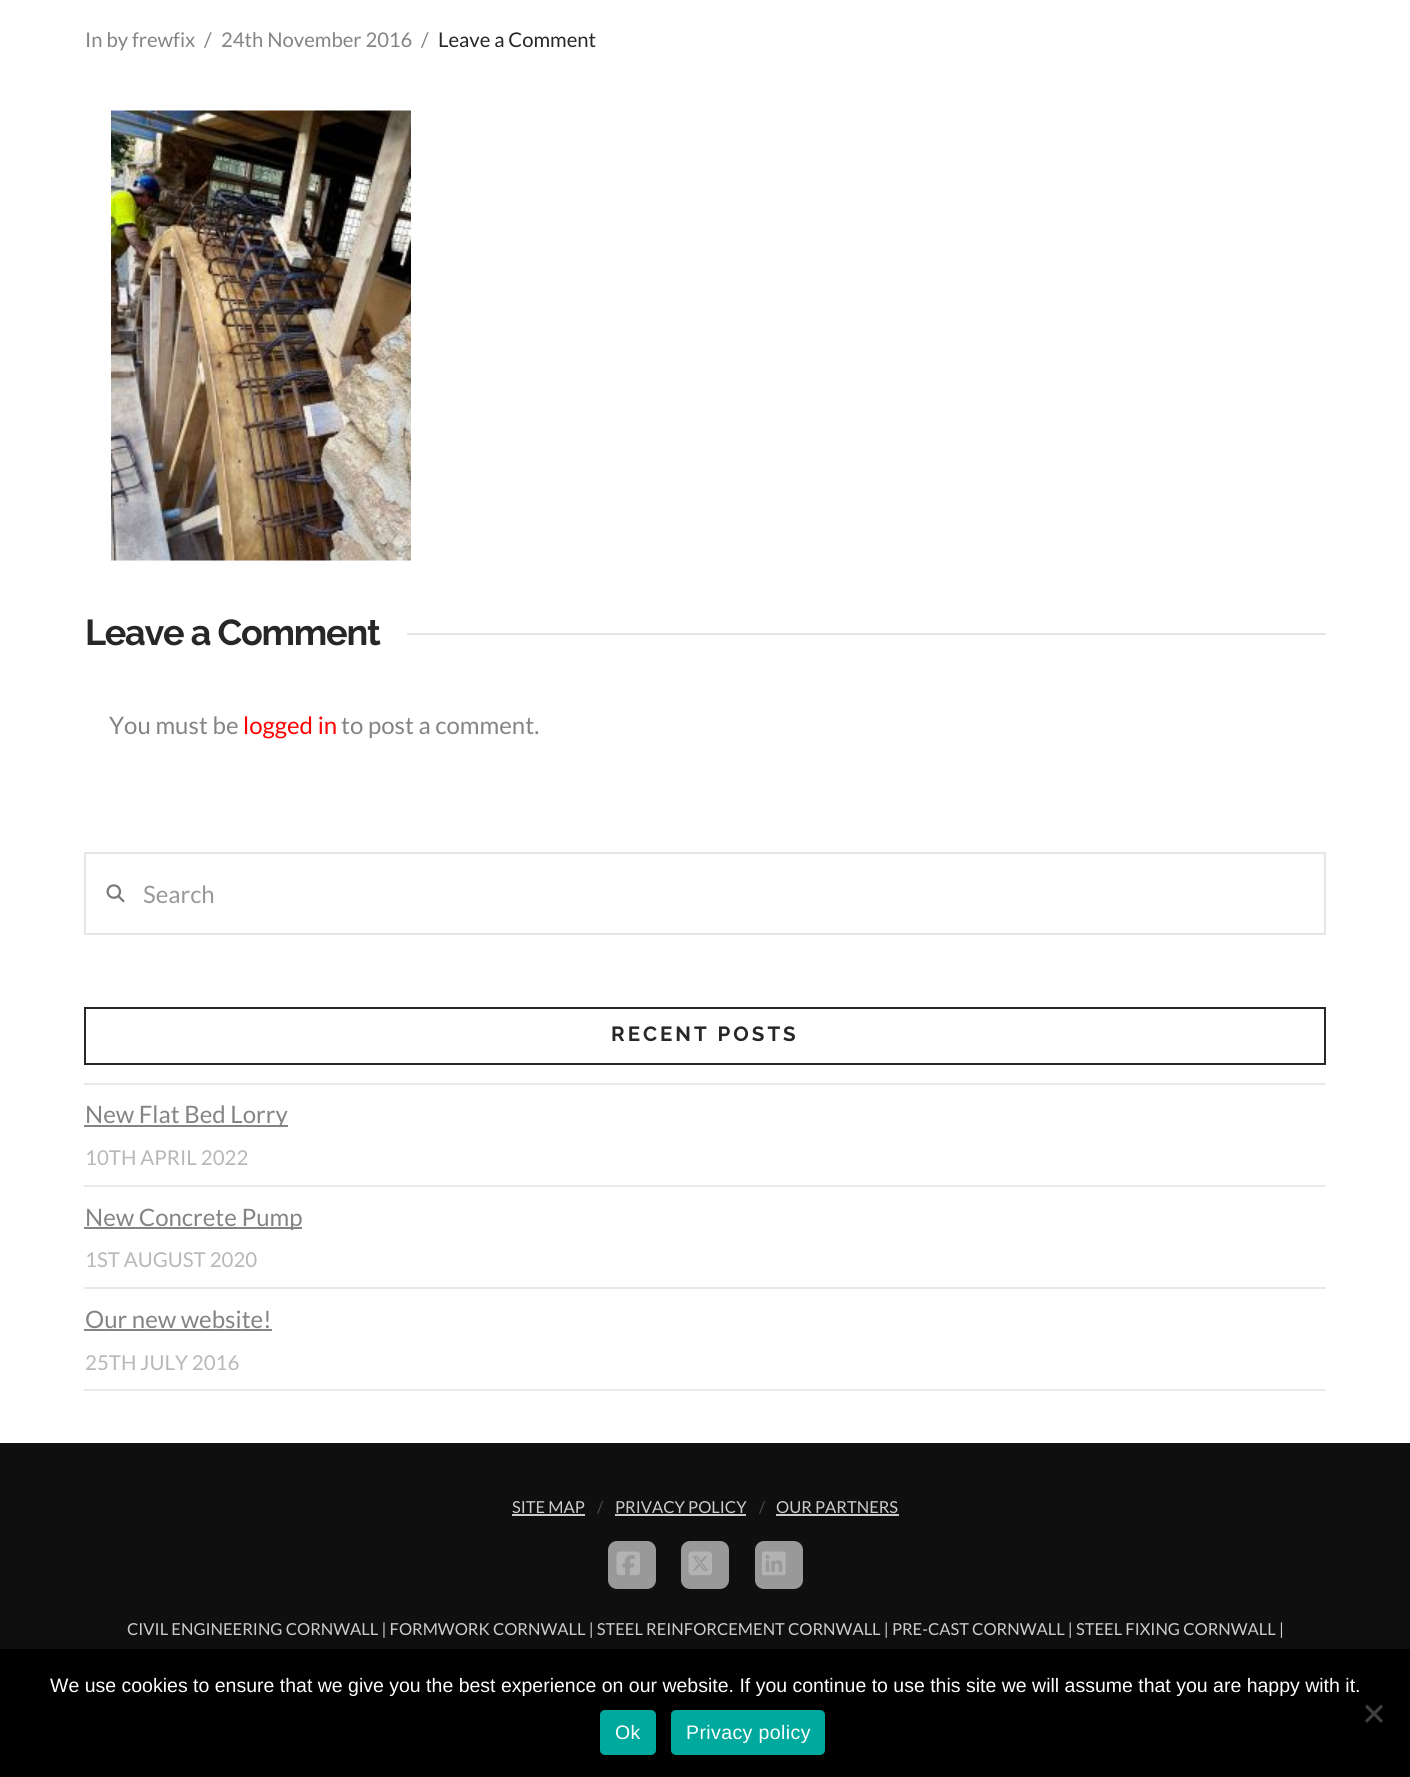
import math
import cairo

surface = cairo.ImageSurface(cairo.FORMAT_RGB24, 1410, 1777)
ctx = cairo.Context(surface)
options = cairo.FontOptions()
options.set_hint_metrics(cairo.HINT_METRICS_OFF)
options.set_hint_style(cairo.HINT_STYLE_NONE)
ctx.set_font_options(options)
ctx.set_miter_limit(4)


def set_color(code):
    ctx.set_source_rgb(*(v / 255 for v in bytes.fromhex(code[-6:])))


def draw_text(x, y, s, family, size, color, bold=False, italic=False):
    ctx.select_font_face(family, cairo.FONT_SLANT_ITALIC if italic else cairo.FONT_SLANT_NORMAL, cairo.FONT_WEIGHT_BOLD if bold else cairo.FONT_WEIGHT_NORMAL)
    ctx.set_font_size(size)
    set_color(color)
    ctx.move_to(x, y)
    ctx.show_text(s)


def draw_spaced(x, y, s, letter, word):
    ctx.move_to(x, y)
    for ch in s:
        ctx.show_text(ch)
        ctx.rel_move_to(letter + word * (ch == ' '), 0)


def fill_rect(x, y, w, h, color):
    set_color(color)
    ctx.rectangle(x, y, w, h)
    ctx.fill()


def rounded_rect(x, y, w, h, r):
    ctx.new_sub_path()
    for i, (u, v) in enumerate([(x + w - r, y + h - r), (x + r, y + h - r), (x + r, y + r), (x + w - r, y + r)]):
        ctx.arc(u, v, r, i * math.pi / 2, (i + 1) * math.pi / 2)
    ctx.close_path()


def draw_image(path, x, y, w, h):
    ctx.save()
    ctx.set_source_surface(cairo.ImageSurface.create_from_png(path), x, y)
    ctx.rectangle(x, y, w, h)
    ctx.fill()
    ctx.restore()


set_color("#ffffff")
ctx.paint()
draw_text(85, 47, "In by frewfix", "Lato", 20.25, "#848484")
draw_text(204, 47, "/", "Lato", 20.25, "#848484")
draw_text(221, 47, "24th November 2016", "Lato", 20.25, "#848484")
draw_text(421, 47, "/", "Lato", 20.25, "#848484")
draw_text(438, 47, "Leave a Comment", "Lato", 20.25, "#272727")
draw_image("assets/img1.png", 111, 110, 300, 451)
ctx.select_font_face("Raleway", cairo.FONT_SLANT_NORMAL, cairo.FONT_WEIGHT_BOLD)
ctx.set_font_size(36)
draw_spaced(85, 645, "Leave a Comment", -1.25, 0)
fill_rect(407, 633, 919, 2, "#e6e6e6")
draw_text(109, 734, "You must be", "Lato", 24, "#848484")
draw_text(243, 734, "logged in", "Lato", 24, "#ff0000")
draw_text(341, 734, "to post a comment.", "Lato", 24, "#848484")
ctx.rectangle(85, 853, 1240, 81)
set_color("#e6e6e6")
ctx.stroke()
draw_image("assets/img2.png", 106, 884, 19, 19)
draw_text(143, 903, "Search", "Lato", 24, "#999999")
ctx.rectangle(85, 1008, 1240, 56)
set_color("#272727")
ctx.stroke()
ctx.select_font_face("Raleway", cairo.FONT_SLANT_NORMAL, cairo.FONT_WEIGHT_BOLD)
ctx.set_font_size(20.5)
draw_spaced(611, 1041, "RECENT POSTS", 3, 0)
fill_rect(84, 1083, 1242, 2, "#e9e9e9")
fill_rect(84, 1125, 204, 2, "#848484")
draw_text(85, 1123, "New Flat Bed Lorry", "Lato", 24, "#848484")
draw_text(85, 1165, "10TH APRIL 2022", "Lato", 20.5, "#b8b8b8")
fill_rect(84, 1185, 1242, 2, "#e9e9e9")
fill_rect(84, 1227, 218, 2, "#848484")
draw_text(85, 1226, "New Concrete Pump", "Lato", 24, "#848484")
draw_text(85, 1267, "1ST AUGUST 2020", "Lato", 20.5, "#b8b8b8")
fill_rect(84, 1287, 1242, 2, "#e9e9e9")
fill_rect(84, 1389, 1242, 2, "#e9e9e9")
draw_text(85, 1328, "Our new website!", "Lato", 24, "#848484")
fill_rect(84, 1329, 188, 2, "#848484")
draw_text(85, 1370, "25TH JULY 2016", "Lato", 20.5, "#b8b8b8")
fill_rect(0, 1443, 1410, 206, "#0f0f0f")
draw_text(512, 1513, "SITE MAP", "Lato", 16.5, "#cccccc")
fill_rect(512, 1514, 73, 2, "#cccccc")
draw_text(597, 1513, "/", "Lato", 16.5, "#4b4b4b")
draw_text(615, 1513, "PRIVACY POLICY", "Lato", 16.5, "#cccccc")
fill_rect(615, 1514, 131, 2, "#cccccc")
draw_text(759, 1513, "/", "Lato", 16.5, "#4b4b4b")
draw_text(776, 1513, "OUR PARTNERS", "Lato", 16.5, "#cccccc")
fill_rect(776, 1514, 123, 2, "#cccccc")
set_color("#999999")
rounded_rect(608, 1541, 48, 48, 9)
ctx.fill()
draw_image("assets/img3.png", 616, 1551, 24, 25)
rounded_rect(681, 1541, 48, 48, 9)
ctx.fill()
draw_image("assets/img4.png", 688, 1551, 24, 25)
rounded_rect(755, 1541, 48, 48, 9)
ctx.fill()
draw_image("assets/img5.png", 762, 1551, 24, 25)
draw_text(127, 1635, "CIVIL ENGINEERING CORNWALL | FORMWORK CORNWALL | STEEL REINFORCEMENT CORNWALL | PRE-CAST CORNWALL | STEEL FIXING CORNWALL |", "Lato", 16.5, "#cccccc")
fill_rect(0, 1649, 1410, 128, "#000000")
draw_text(50, 1692, "We use cookies to ensure that we give you the best experience on our website. If you continue to use this site we will assume that you are happy with it.", "Liberation Sans", 19.5, "#ffffff")
set_color("#404040")
ctx.new_path()
ctx.move_to(1381, 1704.5)
ctx.line_to(1383, 1707)
ctx.line_to(1367, 1723)
ctx.line_to(1365, 1720.5)
ctx.close_path()
ctx.fill()
ctx.new_path()
ctx.move_to(1365, 1707)
ctx.line_to(1367, 1704.5)
ctx.line_to(1383, 1720.5)
ctx.line_to(1381, 1723)
ctx.close_path()
ctx.fill()
set_color("#00a99d")
rounded_rect(600, 1710, 56, 45, 5)
ctx.fill()
set_color("#ffffff")
draw_spaced(615, 1739, "Ok", 0.4, 0)
set_color("#00a99d")
rounded_rect(671, 1710, 154, 45, 5)
ctx.fill()
set_color("#ffffff")
draw_spaced(686, 1739, "Privacy policy", 0.4, 0)
surface.write_to_png("output.png")
